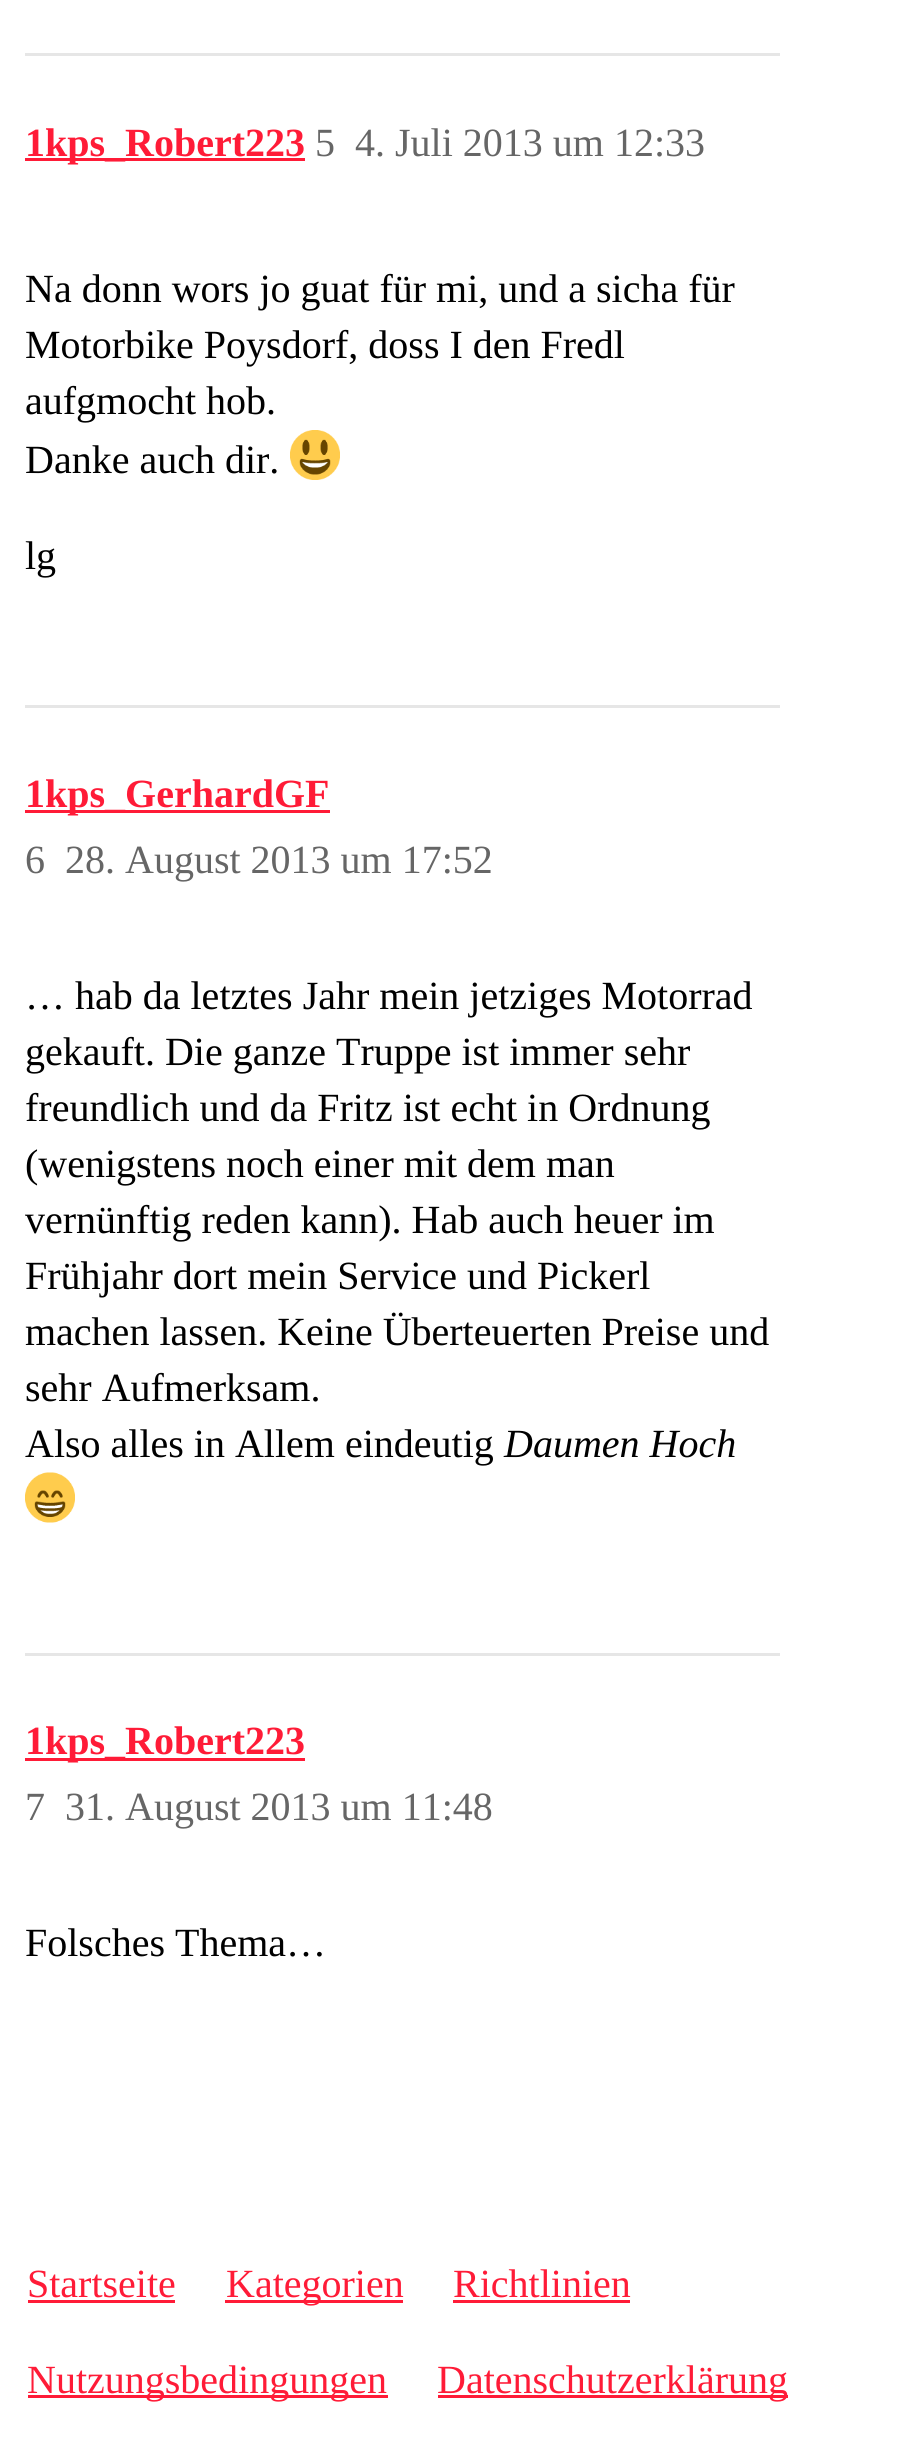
import math
import cairo

surface = cairo.ImageSurface(cairo.FORMAT_RGB24, 922, 2446)
ctx = cairo.Context(surface)
options = cairo.FontOptions()
options.set_hint_metrics(cairo.HINT_METRICS_OFF)
options.set_hint_style(cairo.HINT_STYLE_NONE)
ctx.set_font_options(options)
ctx.set_miter_limit(4)


def set_color(code):
    ctx.set_source_rgb(*(v / 255 for v in bytes.fromhex(code[-6:])))


def draw_text(x, y, s, family, size, color, bold=False, italic=False):
    ctx.select_font_face(family, cairo.FONT_SLANT_ITALIC if italic else cairo.FONT_SLANT_NORMAL, cairo.FONT_WEIGHT_BOLD if bold else cairo.FONT_WEIGHT_NORMAL)
    ctx.set_font_size(size)
    set_color(color)
    ctx.move_to(x, y)
    ctx.show_text(s)


def fill_rect(x, y, w, h, color):
    set_color(color)
    ctx.rectangle(x, y, w, h)
    ctx.fill()


def draw_image(path, x, y, w, h):
    ctx.save()
    ctx.set_source_surface(cairo.ImageSurface.create_from_png(path), x, y)
    ctx.rectangle(x, y, w, h)
    ctx.fill()
    ctx.restore()


set_color("#ffffff")
ctx.paint()
fill_rect(25, 53, 755, 3, "#e6e6e6")
fill_rect(25, 158, 280, 3, "#ff1b37")
draw_text(25, 156, "1kps_Robert223", "Liberation Serif", 40, "#ff1b37", bold=True)
draw_text(315, 156, "5", "Liberation Serif", 40, "#666666")
draw_text(355, 156, "4. Juli 2013 um 12:33", "Liberation Serif", 40, "#666666")
draw_text(25, 302, "Na donn wors jo guat für mi, und a sicha für", "Liberation Serif", 40, "#000000")
draw_text(25, 358, "Motorbike Poysdorf, doss I den Fredl", "Liberation Serif", 40, "#000000")
draw_text(25, 414, "aufgmocht hob.", "Liberation Serif", 40, "#000000")
draw_text(25, 473, "Danke auch dir.", "Liberation Serif", 40, "#000000")
draw_image("assets/img1.png", 290, 430, 50, 50)
draw_text(25, 569, "lg", "Liberation Serif", 40, "#000000")
fill_rect(25, 705, 755, 3, "#e6e6e6")
fill_rect(25, 810, 305, 3, "#ff1b37")
draw_text(25, 807, "1kps_GerhardGF", "Liberation Serif", 40, "#ff1b37", bold=True)
draw_text(25, 873, "6", "Liberation Serif", 40, "#666666")
draw_text(65, 873, "28. August 2013 um 17:52", "Liberation Serif", 40, "#666666")
draw_text(25, 1009, "… hab da letztes Jahr mein jetziges Motorrad", "Liberation Serif", 40, "#000000")
draw_text(25, 1065, "gekauft. Die ganze Truppe ist immer sehr", "Liberation Serif", 40, "#000000")
draw_text(25, 1121, "freundlich und da Fritz ist echt in Ordnung", "Liberation Serif", 40, "#000000")
draw_text(25, 1177, "(wenigstens noch einer mit dem man", "Liberation Serif", 40, "#000000")
draw_text(25, 1233, "vernünftig reden kann). Hab auch heuer im", "Liberation Serif", 40, "#000000")
draw_text(25, 1289, "Frühjahr dort mein Service und Pickerl", "Liberation Serif", 40, "#000000")
draw_text(25, 1345, "machen lassen. Keine Überteuerten Preise und", "Liberation Serif", 40, "#000000")
draw_text(25, 1401, "sehr Aufmerksam.", "Liberation Serif", 40, "#000000")
draw_text(25, 1457, "Also alles in Allem eindeutig", "Liberation Serif", 40, "#000000")
draw_text(504, 1457, "Daumen Hoch", "Liberation Serif", 40, "#000000", italic=True)
draw_image("assets/img2.png", 25, 1472, 50, 51)
fill_rect(25, 1653, 755, 3, "#e6e6e6")
fill_rect(25, 1758, 280, 3, "#ff1b37")
draw_text(25, 1754, "1kps_Robert223", "Liberation Serif", 40, "#ff1b37", bold=True)
draw_text(25, 1820, "7", "Liberation Serif", 40, "#666666")
draw_text(65, 1820, "31. August 2013 um 11:48", "Liberation Serif", 40, "#666666")
draw_text(25, 1956, "Folsches Thema…", "Liberation Serif", 40, "#000000")
draw_text(27, 2297, "Startseite", "Liberation Serif", 40, "#ff1b37")
fill_rect(28, 2300, 147, 3, "#ff1b37")
fill_rect(225, 2300, 178, 3, "#ff1b37")
draw_text(226, 2297, "Kategorien", "Liberation Serif", 40, "#ff1b37")
draw_text(453, 2297, "Richtlinien", "Liberation Serif", 40, "#ff1b37")
fill_rect(453, 2300, 177, 3, "#ff1b37")
fill_rect(28, 2395, 360, 3, "#ff1b37")
draw_text(27, 2393, "Nutzungsbedingungen", "Liberation Serif", 40, "#ff1b37")
fill_rect(438, 2395, 350, 3, "#ff1b37")
draw_text(437, 2393, "Datenschutzerklärung", "Liberation Serif", 40, "#ff1b37")
surface.write_to_png("output.png")
